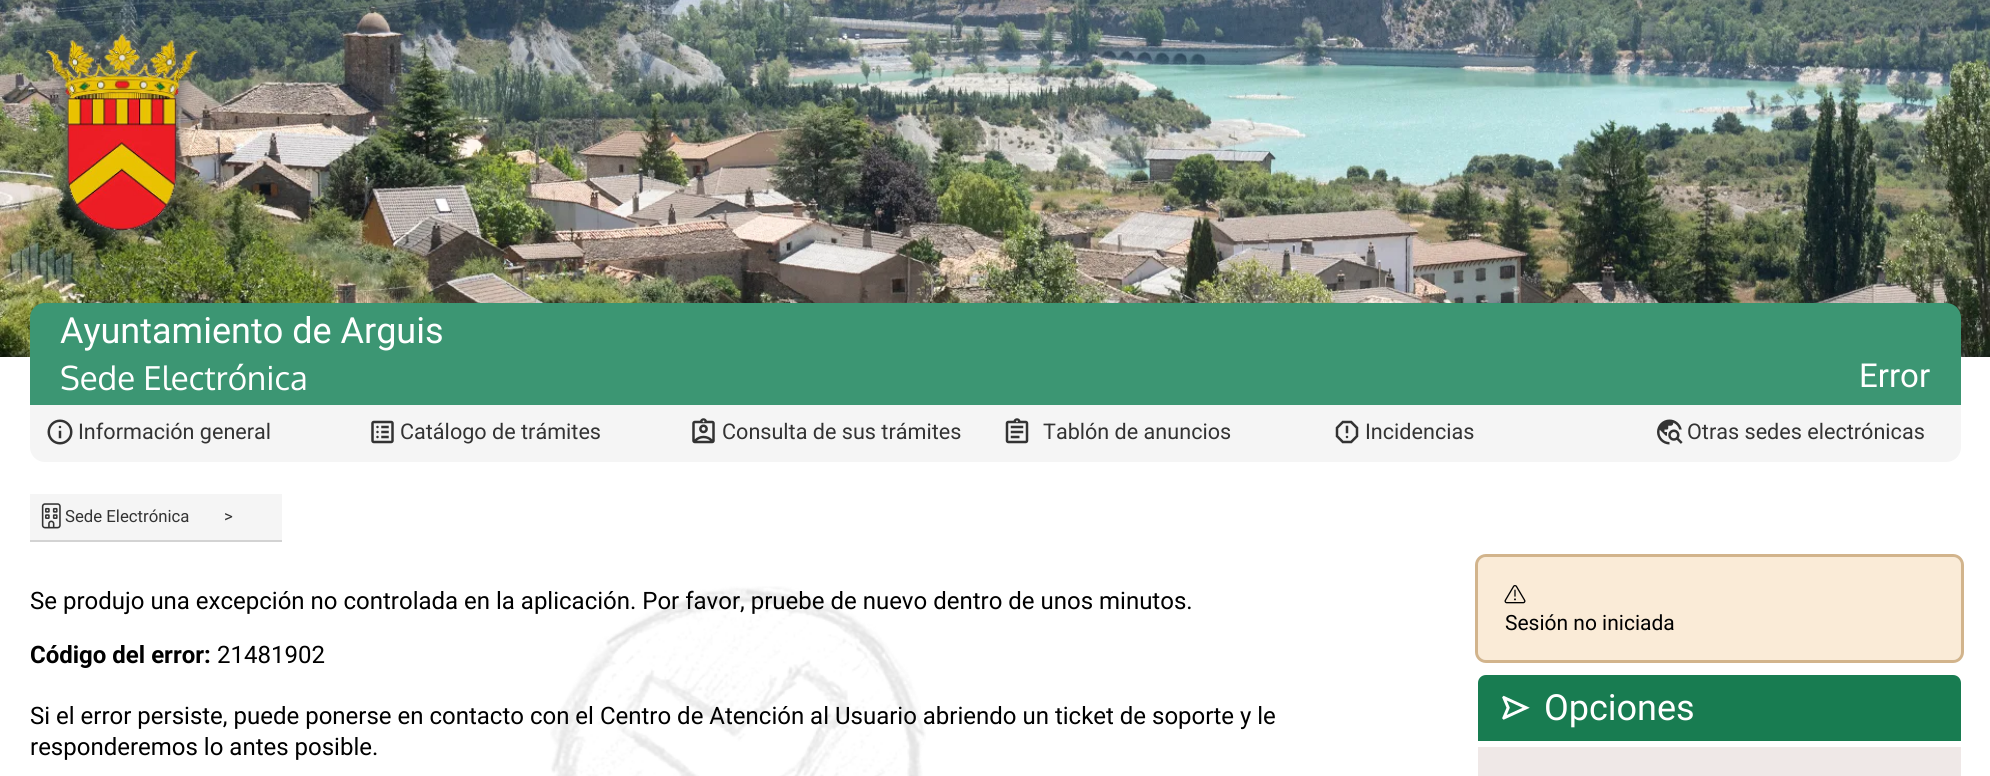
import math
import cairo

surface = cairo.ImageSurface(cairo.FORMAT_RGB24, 1990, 776)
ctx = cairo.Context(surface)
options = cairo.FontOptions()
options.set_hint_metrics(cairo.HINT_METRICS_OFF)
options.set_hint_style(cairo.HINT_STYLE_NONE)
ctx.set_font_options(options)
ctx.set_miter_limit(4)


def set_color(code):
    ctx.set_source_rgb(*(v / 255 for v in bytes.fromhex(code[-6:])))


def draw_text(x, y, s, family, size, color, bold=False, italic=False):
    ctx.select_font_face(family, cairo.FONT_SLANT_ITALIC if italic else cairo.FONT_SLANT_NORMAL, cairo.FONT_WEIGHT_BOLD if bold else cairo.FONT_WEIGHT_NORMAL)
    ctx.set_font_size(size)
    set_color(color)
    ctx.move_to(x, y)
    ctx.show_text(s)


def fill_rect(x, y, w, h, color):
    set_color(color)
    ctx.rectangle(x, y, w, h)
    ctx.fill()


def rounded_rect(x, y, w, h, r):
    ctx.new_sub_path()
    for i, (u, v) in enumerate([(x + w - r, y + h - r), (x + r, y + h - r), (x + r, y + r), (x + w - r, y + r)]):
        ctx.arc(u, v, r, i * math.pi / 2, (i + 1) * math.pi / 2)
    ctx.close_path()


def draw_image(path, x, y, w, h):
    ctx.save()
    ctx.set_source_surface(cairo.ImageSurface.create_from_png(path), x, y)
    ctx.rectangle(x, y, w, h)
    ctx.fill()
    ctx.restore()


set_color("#ffffff")
ctx.paint()
draw_image("assets/img1.png", 0, 0, 1990, 357)
draw_image("assets/img2.png", 43, 27, 158, 213)
set_color("#3c9673")
ctx.new_path()
ctx.move_to(45, 303)
ctx.line_to(1946, 303)
ctx.curve_to(1954.5, 303, 1961, 309.5, 1961, 318)
ctx.line_to(1961, 354)
ctx.line_to(30, 354)
ctx.line_to(30, 318)
ctx.curve_to(30, 309.5, 36.5, 303, 45, 303)
ctx.close_path()
ctx.fill()
draw_text(60, 343, "Ayuntamiento de Arguis", "Roboto", 36, "#ffffff")
fill_rect(30, 354, 1931, 51, "#3c9673")
draw_text(60, 390, "Sede Electrónica", "Oxygen", 33, "#ffffff")
draw_text(1859, 387, "Error", "Roboto", 33, "#ffffff")
set_color("#f5f5f5")
ctx.new_path()
ctx.move_to(30, 405)
ctx.line_to(353, 405)
ctx.line_to(353, 462)
ctx.line_to(45, 462)
ctx.curve_to(36.5, 462, 30, 455.5, 30, 447)
ctx.close_path()
ctx.fill()
draw_image("assets/img3.png", 47, 419, 26, 26)
draw_text(78, 439, "Información general", "Roboto", 21.6, "#333333")
fill_rect(353, 405, 1287, 57, "#f5f5f5")
draw_image("assets/img4.png", 371, 420, 23, 24)
draw_text(400, 439, "Catálogo de trámites", "Roboto", 21.6, "#333333")
draw_image("assets/img5.png", 692, 418, 23, 26)
draw_text(722, 439, "Consulta de sus trámites", "Roboto", 21.6, "#333333")
draw_image("assets/img6.png", 1005, 418, 24, 26)
draw_text(1043, 439, "Tablón de anuncios", "Roboto", 21.6, "#333333")
draw_image("assets/img7.png", 1335, 420, 24, 24)
draw_text(1365, 439, "Incidencias", "Roboto", 21.6, "#333333")
set_color("#f5f5f5")
ctx.new_path()
ctx.move_to(1640, 405)
ctx.line_to(1961, 405)
ctx.line_to(1961, 447)
ctx.curve_to(1961, 455.5, 1954.5, 462, 1946, 462)
ctx.line_to(1640, 462)
ctx.close_path()
ctx.fill()
draw_image("assets/img8.png", 1657, 419, 26, 26)
draw_text(1687, 439, "Otras sedes electrónicas", "Roboto", 21.6, "#333333")
fill_rect(30, 494, 252, 46, "#f5f5f5")
fill_rect(30, 540, 252, 2, "#d3d3d3")
draw_image("assets/img9.png", 41, 503, 20, 26)
draw_text(65, 522, "Sede Electrónica", "Roboto", 16.75, "#333333")
draw_text(224, 522, ">", "Roboto", 16.75, "#333333")
draw_image("assets/img10.png", 550, 586, 376, 190)
draw_text(30, 609, "Se produjo una excepción no controlada en la aplicación. Por favor, pruebe de nuevo dentro de unos minutos.", "Roboto", 24, "#000000")
draw_text(30, 663, "Código del error:", "Roboto", 24, "#000000", bold=True)
draw_text(217, 663, "21481902", "Roboto", 24, "#000000")
draw_text(30, 724, "Si el error persiste, puede ponerse en contacto con el Centro de Atención al Usuario abriendo un ticket de soporte y le", "Roboto", 24, "#000000")
draw_text(30, 755, "responderemos lo antes posible.", "Roboto", 24, "#000000")
set_color("#faebd7")
rounded_rect(1478, 557, 483, 103, 8)
ctx.fill()
draw_image("assets/img11.png", 1504, 585, 22, 19)
rounded_rect(1476.5, 555.5, 486, 106, 9.5)
set_color("#d2b48c")
ctx.set_line_width(3)
ctx.stroke()
draw_text(1505, 630, "Sesión no iniciada", "Roboto", 21, "#000000")
set_color("#187c51")
ctx.new_path()
ctx.move_to(1486, 675)
ctx.line_to(1953, 675)
ctx.curve_to(1957.5, 675, 1961, 678.5, 1961, 683)
ctx.line_to(1961, 741)
ctx.line_to(1478, 741)
ctx.line_to(1478, 683)
ctx.curve_to(1478, 678.5, 1481.5, 675, 1486, 675)
ctx.close_path()
ctx.fill()
draw_image("assets/img12.png", 1502, 695, 28, 25)
draw_text(1544, 720, "Opciones", "Roboto", 36, "#ffffff")
fill_rect(1478, 747, 483, 29, "#efe8e7")
surface.write_to_png("output.png")
